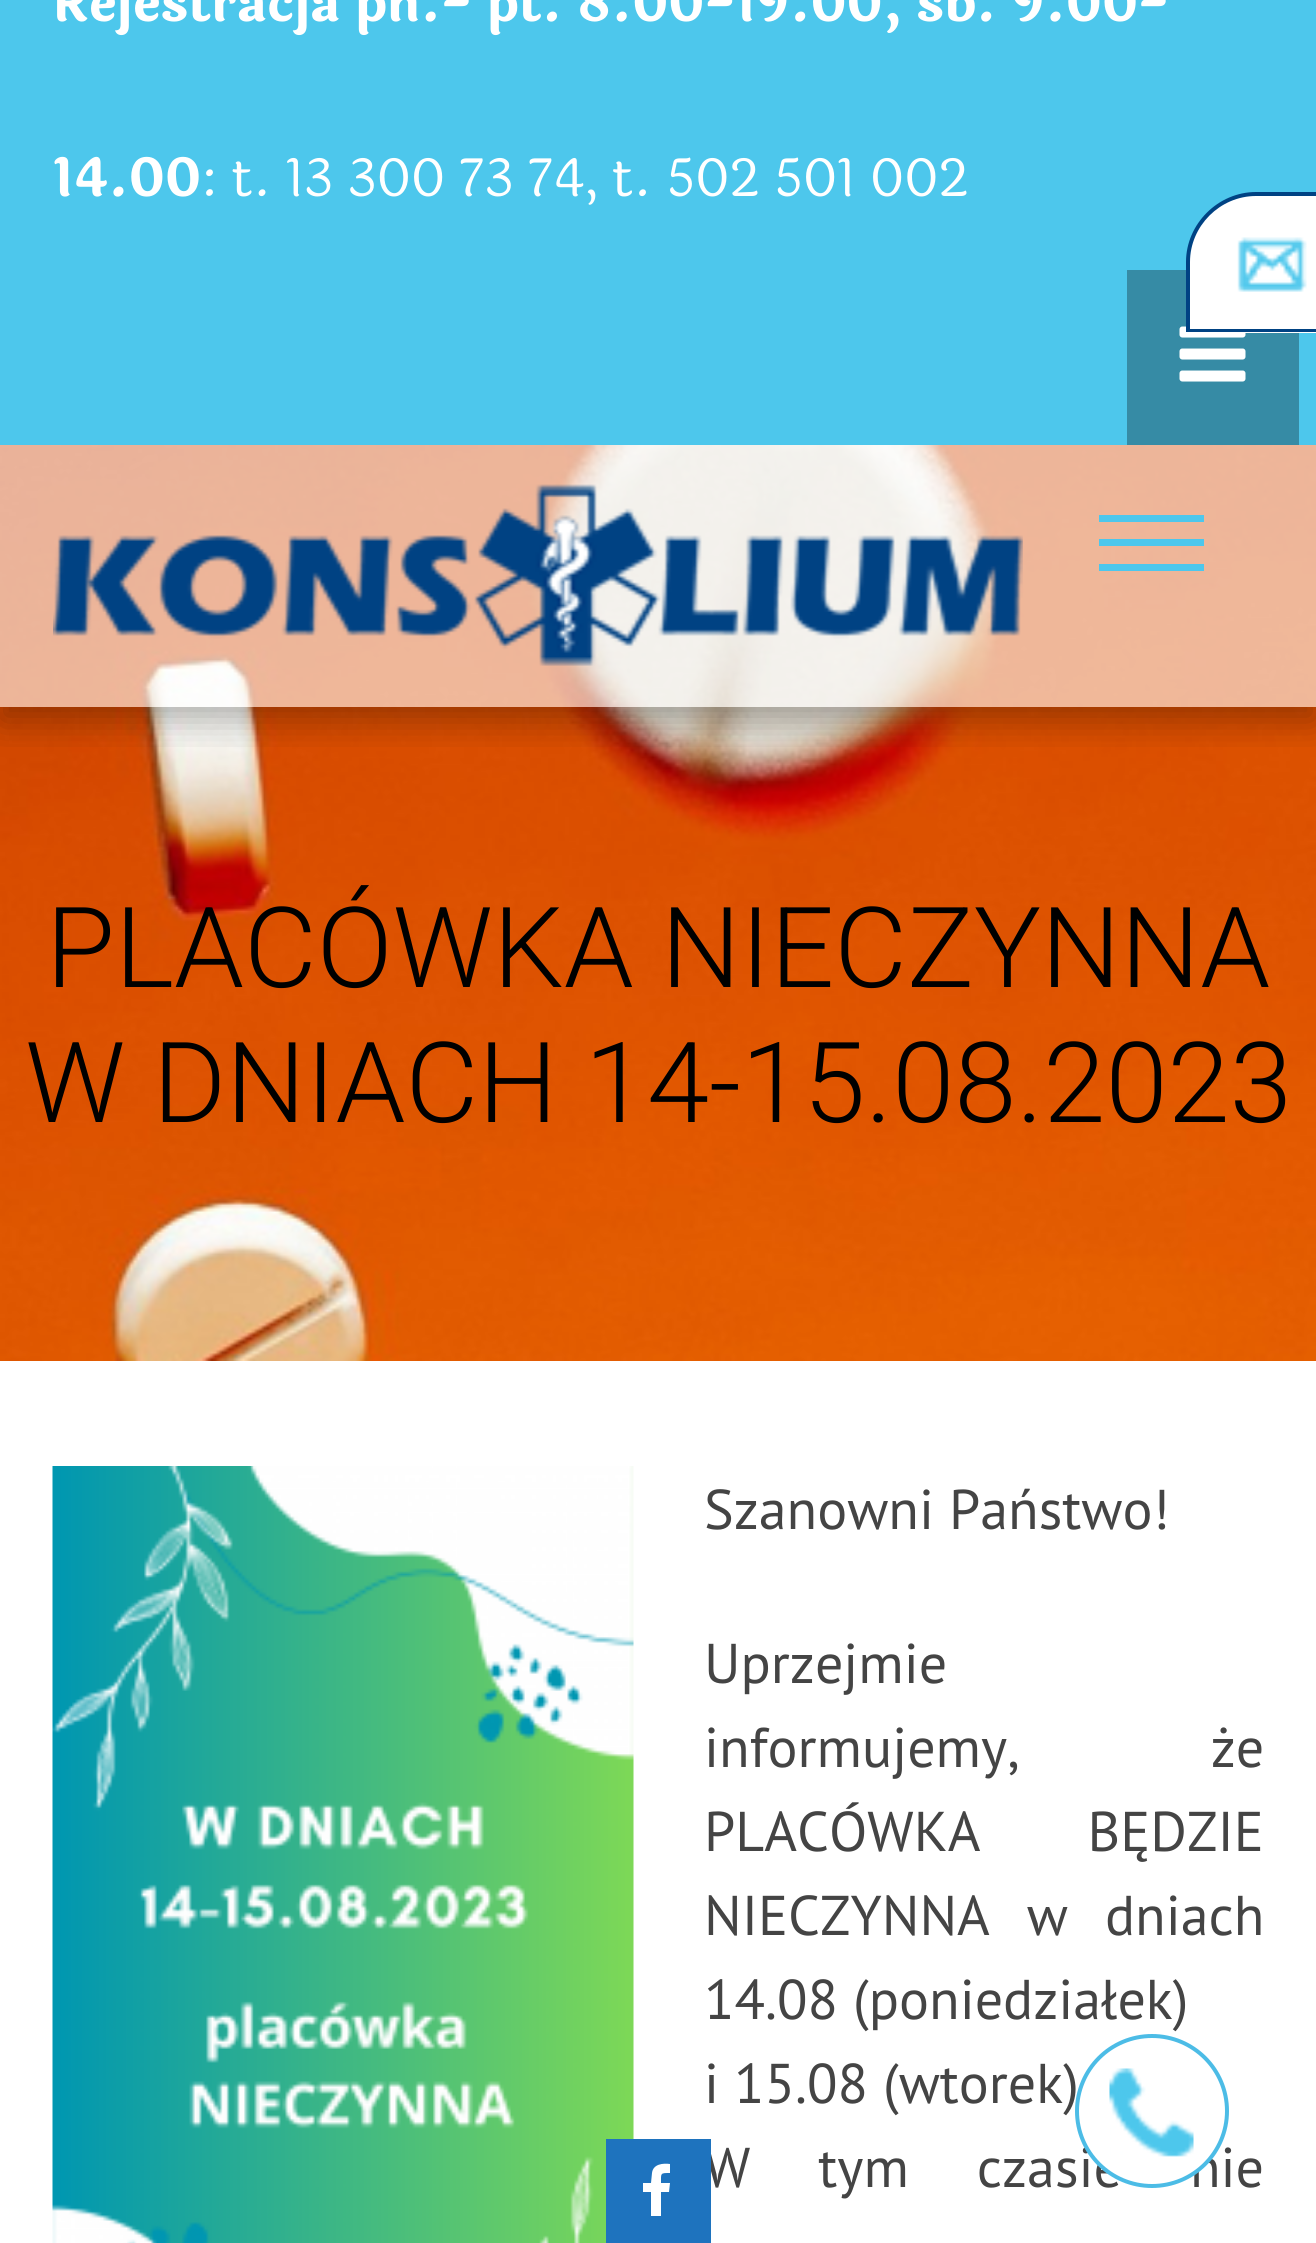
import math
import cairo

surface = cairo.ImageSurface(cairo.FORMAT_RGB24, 1316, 2243)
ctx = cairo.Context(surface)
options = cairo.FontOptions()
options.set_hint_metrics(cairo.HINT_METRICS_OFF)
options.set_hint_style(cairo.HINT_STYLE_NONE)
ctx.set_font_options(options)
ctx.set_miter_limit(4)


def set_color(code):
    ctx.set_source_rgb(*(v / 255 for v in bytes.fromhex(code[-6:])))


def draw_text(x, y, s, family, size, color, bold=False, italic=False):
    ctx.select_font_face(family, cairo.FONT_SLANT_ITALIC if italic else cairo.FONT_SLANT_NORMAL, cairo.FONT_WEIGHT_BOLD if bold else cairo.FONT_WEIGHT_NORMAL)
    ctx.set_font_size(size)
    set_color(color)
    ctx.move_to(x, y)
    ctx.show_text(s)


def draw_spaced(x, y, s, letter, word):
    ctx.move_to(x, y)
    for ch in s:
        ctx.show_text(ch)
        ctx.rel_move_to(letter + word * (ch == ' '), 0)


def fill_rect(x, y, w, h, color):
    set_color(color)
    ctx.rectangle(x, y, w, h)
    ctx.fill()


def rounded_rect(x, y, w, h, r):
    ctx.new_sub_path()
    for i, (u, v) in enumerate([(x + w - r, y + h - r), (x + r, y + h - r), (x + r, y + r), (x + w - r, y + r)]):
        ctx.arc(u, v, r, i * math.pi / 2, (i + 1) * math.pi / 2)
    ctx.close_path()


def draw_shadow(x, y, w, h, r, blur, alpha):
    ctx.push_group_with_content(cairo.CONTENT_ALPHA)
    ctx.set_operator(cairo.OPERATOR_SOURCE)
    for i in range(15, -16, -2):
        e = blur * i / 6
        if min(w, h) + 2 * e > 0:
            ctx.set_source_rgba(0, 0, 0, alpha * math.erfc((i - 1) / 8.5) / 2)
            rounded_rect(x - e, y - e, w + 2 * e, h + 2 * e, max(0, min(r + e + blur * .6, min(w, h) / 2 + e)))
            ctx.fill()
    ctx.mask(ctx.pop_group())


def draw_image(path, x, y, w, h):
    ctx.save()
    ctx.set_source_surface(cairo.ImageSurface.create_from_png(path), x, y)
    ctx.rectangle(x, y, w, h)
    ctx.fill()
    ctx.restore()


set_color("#ffffff")
ctx.paint()
draw_image("assets/img3.png", 0, 445, 1316, 916)
ctx.save()
ctx.rectangle(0, 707, 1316, 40)
ctx.clip()
set_color("#000000")
draw_shadow(0, 459, 1316, 262, 0, 17.5, 0.3)
ctx.restore()
fill_rect(0, 0, 1316, 445, "#4dc7ec")
draw_text(53, 21, "Rejestracja pn.- pt. 8.00-19.00, sb. 9.00-", "Laila", 52.5, "#ffffff", bold=True)
draw_text(53, 196, "14.00", "Laila", 52.5, "#ffffff", bold=True)
draw_text(201, 196, ": t. 13 300 73 74, t. 502 501 002", "Laila", 52.5, "#ffffff")
fill_rect(1127, 270, 172, 175, "#368ba5")
draw_image("assets/img1.png", 1179, 326, 67, 56)
ctx.set_source_rgba(1, 1, 1, 0.6)
ctx.rectangle(0, 445, 1316, 262)
ctx.fill()
draw_image("assets/img2.png", 53, 484, 970, 182)
fill_rect(1099, 515, 105, 7, "#4dc7ec")
fill_rect(1099, 539, 105, 7, "#4dc7ec")
fill_rect(1099, 564, 105, 7, "#4dc7ec")
draw_image("assets/img4.png", 52, 1466, 582, 777)
ctx.select_font_face("PT Sans")
ctx.set_font_size(56)
set_color("#444444")
draw_spaced(704, 2187, "W tym czasie nie", 0, 53)
fill_rect(606, 2139, 105, 104, "#1e73be")
set_color("#ffffff")
ctx.new_path()
ctx.move_to(670, 2164)
ctx.line_to(670, 2173)
ctx.curve_to(660, 2173, 661, 2173, 661, 2183)
ctx.line_to(670, 2183)
ctx.line_to(669, 2192)
ctx.line_to(661, 2192)
ctx.line_to(661, 2216)
ctx.line_to(651, 2216)
ctx.line_to(651, 2192)
ctx.line_to(643, 2192)
ctx.line_to(643, 2183)
ctx.line_to(651, 2183)
ctx.line_to(652, 2173)
ctx.curve_to(653, 2164, 663, 2163, 670, 2164)
ctx.close_path()
ctx.fill()
draw_text(46, 987, "PLACÓWKA NIECZYNNA", "Roboto Light", 112, "#000000")
draw_text(25, 1122, "W DNIACH 14-15.08.2023", "Roboto Light", 112, "#000000")
draw_text(704, 1529, "Szanowni Państwo!", "PT Sans", 56, "#444444")
draw_text(704, 1683, "Uprzejmie", "PT Sans", 56, "#444444")
draw_spaced(704, 1767, "informujemy, że", 0, 176)
draw_spaced(704, 1851, "PLACÓWKA BĘDZIE", 0, 92)
draw_spaced(704, 1935, "NIECZYNNA w dniach", 0, 22)
draw_text(704, 2019, "14.08 (poniedziałek)", "PT Sans", 56, "#444444")
draw_text(704, 2103, "i 15.08 (wtorek)", "PT Sans", 56, "#444444")
set_color("#ffffff")
ctx.new_path()
ctx.move_to(1257, 193)
ctx.line_to(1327, 193)
ctx.line_to(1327, 333)
ctx.line_to(1187, 333)
ctx.line_to(1187, 263)
ctx.curve_to(1187, 224.5, 1218.5, 193, 1257, 193)
ctx.close_path()
ctx.fill()
set_color("#004283")
ctx.set_fill_rule(cairo.FILL_RULE_EVEN_ODD)
ctx.new_path()
ctx.move_to(1256, 192)
ctx.line_to(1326, 192)
ctx.line_to(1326, 332)
ctx.line_to(1186, 332)
ctx.line_to(1186, 262)
ctx.curve_to(1186, 224, 1218, 192, 1256, 192)
ctx.close_path()
ctx.move_to(1256, 196)
ctx.line_to(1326, 196)
ctx.line_to(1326, 329)
ctx.line_to(1190, 329)
ctx.line_to(1190, 262)
ctx.curve_to(1190, 226, 1220, 196, 1256, 196)
ctx.close_path()
ctx.fill()
draw_image("assets/img5.png", 1237, 237, 70, 55)
set_color("#ffffff")
ctx.arc(1152, 2111, 75, 0, 2 * math.pi)
ctx.fill_preserve()
set_color("#4cbce6")
ctx.set_line_width(4)
ctx.stroke()
draw_image("assets/img6.png", 1109, 2068, 85, 89)
surface.write_to_png("output.png")
